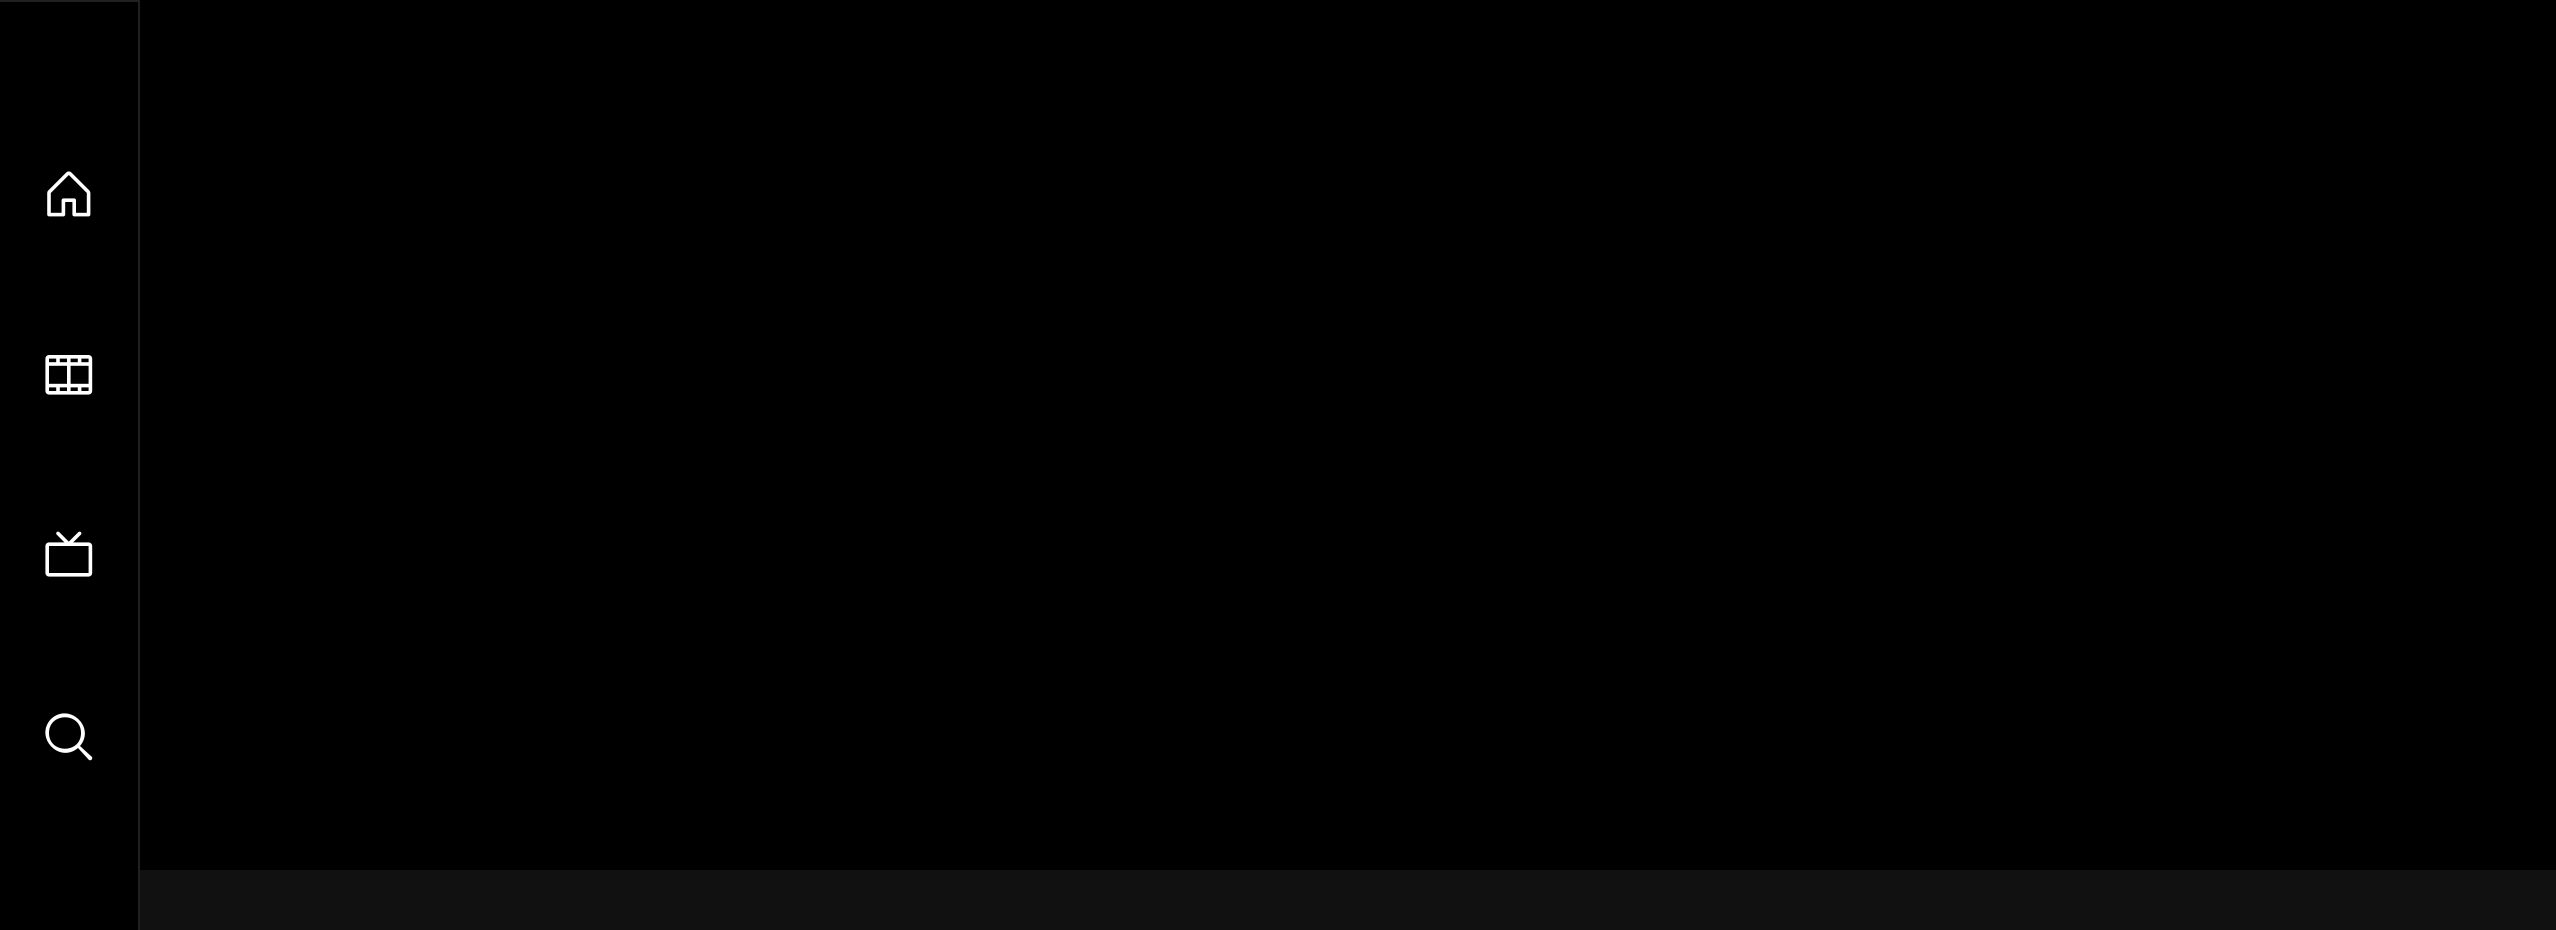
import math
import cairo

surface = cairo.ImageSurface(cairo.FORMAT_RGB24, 2556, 930)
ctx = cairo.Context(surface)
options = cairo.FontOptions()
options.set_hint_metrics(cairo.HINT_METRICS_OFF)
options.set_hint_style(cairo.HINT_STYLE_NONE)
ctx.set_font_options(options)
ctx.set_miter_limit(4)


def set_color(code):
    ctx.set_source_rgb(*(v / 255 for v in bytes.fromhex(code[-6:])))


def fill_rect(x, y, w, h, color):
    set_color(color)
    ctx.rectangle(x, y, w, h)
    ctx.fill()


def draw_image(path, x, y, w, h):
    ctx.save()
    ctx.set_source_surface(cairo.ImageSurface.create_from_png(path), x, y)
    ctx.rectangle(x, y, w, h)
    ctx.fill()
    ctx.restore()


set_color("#111111")
ctx.paint()
fill_rect(0, 0, 140, 930, "#000000")
set_color("#1f2123")
ctx.new_path()
ctx.move_to(0, 0)
ctx.line_to(140, 0)
ctx.line_to(138, 2)
ctx.line_to(0, 2)
ctx.close_path()
ctx.fill()
ctx.set_source_rgba(0.612, 0.639, 0.686, 0.2)
ctx.new_path()
ctx.move_to(140, 0)
ctx.line_to(140, 930)
ctx.line_to(138, 930)
ctx.line_to(138, 2)
ctx.close_path()
ctx.fill()
draw_image("assets/img1.png", 47, 171, 44, 46)
draw_image("assets/img2.png", 45, 355, 48, 40)
draw_image("assets/img3.png", 45, 531, 48, 46)
set_color("#ffffff")
ctx.new_path()
ctx.move_to(92, 757)
ctx.line_to(80, 746)
ctx.curve_to(96, 727, 69, 702, 51, 719)
ctx.curve_to(34, 737, 59, 764, 78, 748)
ctx.line_to(89, 760)
ctx.curve_to(91, 761, 93, 759, 92, 757)
ctx.move_to(49, 733)
ctx.curve_to(49, 712, 81, 712, 81, 733)
ctx.curve_to(81, 754, 49, 754, 49, 733)
ctx.fill()
fill_rect(140, 0, 2416, 870, "#000000")
surface.write_to_png("output.png")
